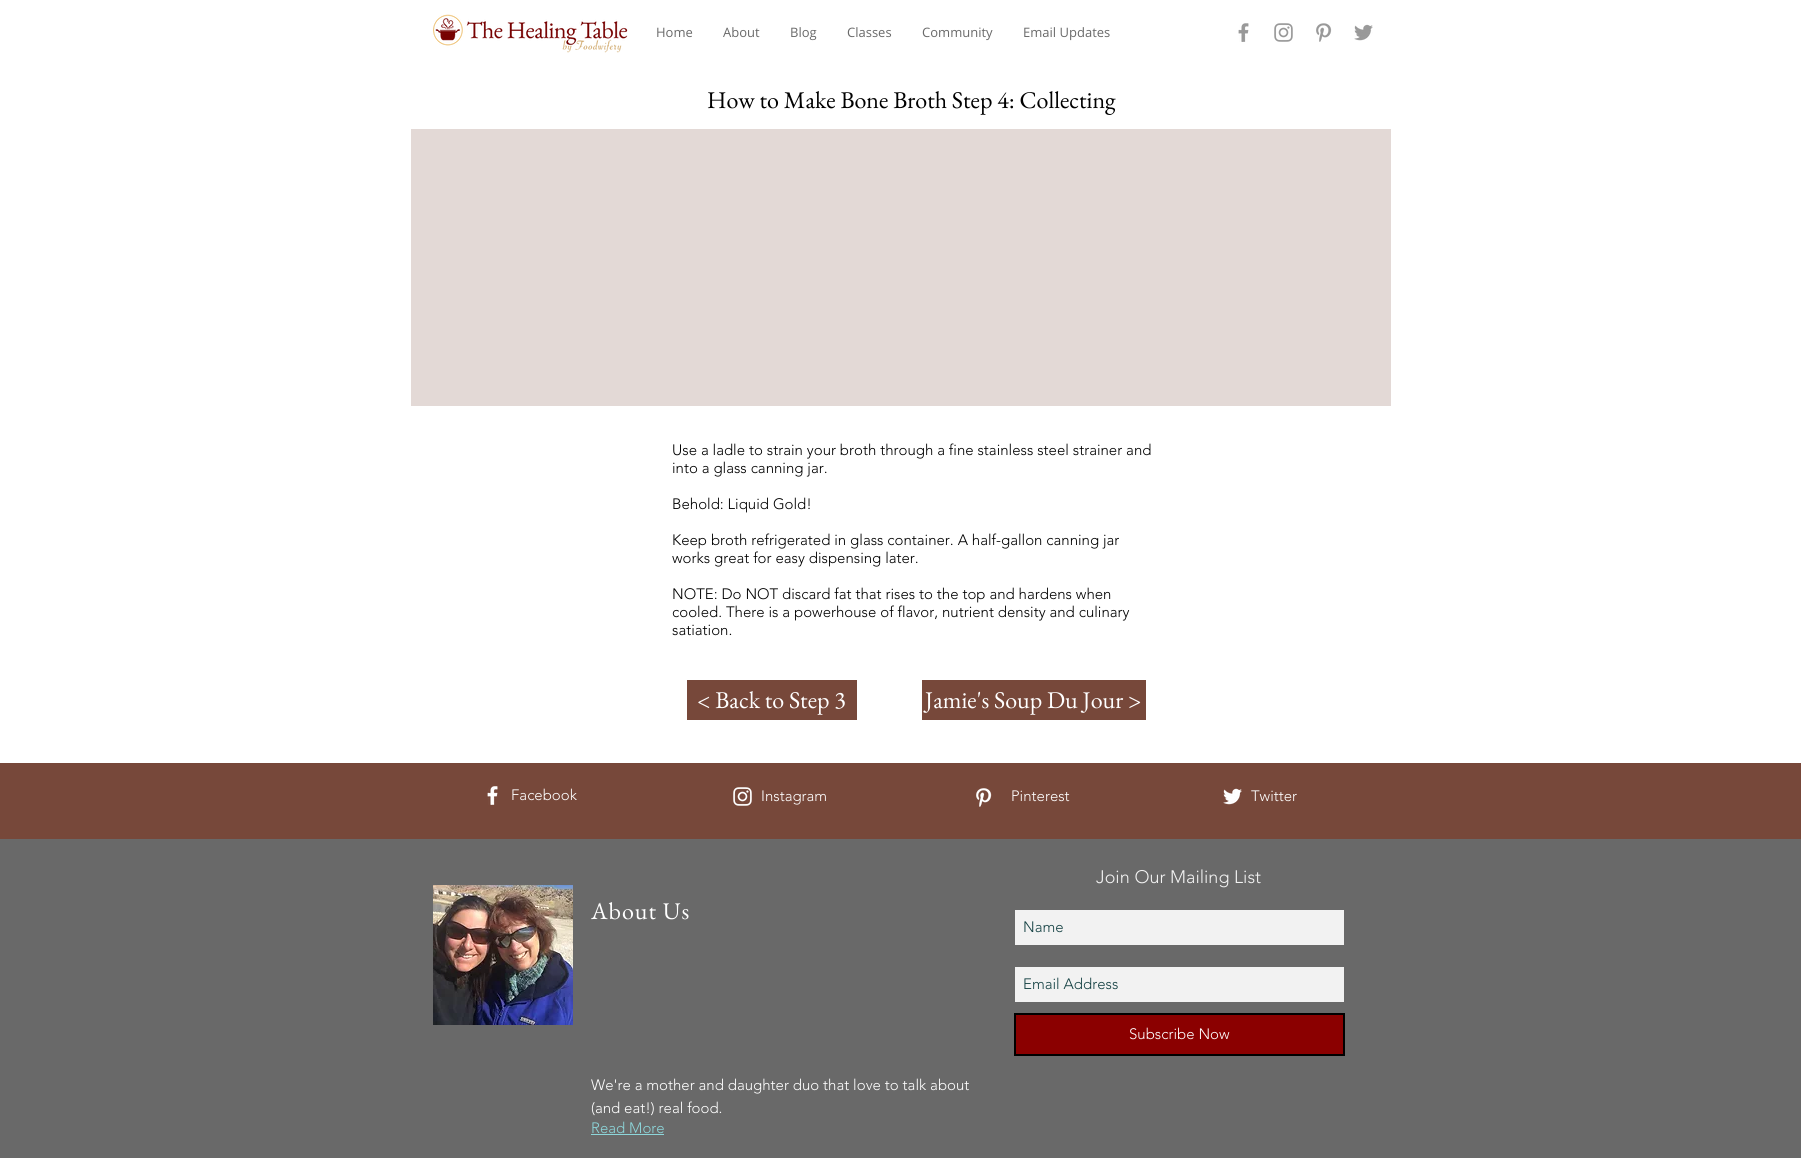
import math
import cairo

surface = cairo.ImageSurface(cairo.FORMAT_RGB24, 1801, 1158)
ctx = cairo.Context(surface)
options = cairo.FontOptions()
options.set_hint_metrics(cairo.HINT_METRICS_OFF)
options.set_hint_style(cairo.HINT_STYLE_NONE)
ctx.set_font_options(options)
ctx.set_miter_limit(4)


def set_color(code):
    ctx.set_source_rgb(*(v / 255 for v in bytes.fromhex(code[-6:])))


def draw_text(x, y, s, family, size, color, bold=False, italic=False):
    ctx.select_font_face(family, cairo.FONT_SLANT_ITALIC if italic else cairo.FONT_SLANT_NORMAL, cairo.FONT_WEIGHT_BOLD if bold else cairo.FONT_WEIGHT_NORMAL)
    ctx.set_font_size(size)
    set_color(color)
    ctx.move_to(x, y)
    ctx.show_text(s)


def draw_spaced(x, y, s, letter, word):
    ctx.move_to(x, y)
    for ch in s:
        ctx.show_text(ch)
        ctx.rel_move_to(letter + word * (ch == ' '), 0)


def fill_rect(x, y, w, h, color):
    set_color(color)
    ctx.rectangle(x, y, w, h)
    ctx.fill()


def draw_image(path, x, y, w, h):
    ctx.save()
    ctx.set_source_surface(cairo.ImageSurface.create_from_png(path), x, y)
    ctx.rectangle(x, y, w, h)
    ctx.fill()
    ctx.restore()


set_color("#ffffff")
ctx.paint()
draw_image("assets/img1.png", 433, 14, 195, 39)
draw_text(656, 37, "Home", "Open Sans", 13, "#696969")
draw_text(723, 37, "About", "Open Sans", 13, "#696969")
draw_text(790, 37, "Blog", "Open Sans", 13, "#696969")
draw_text(847, 37, "Classes", "Open Sans", 13, "#696969")
draw_text(922, 37, "Community", "Open Sans", 13, "#696969")
draw_text(1023, 37, "Email Updates", "Open Sans", 13, "#696969")
draw_image("assets/img2.png", 1238, 23, 11, 19)
draw_image("assets/img3.png", 1274, 23, 19, 19)
draw_image("assets/img4.png", 1316, 23, 16, 19)
draw_image("assets/img5.png", 1354, 24, 19, 17)
draw_text(707, 108, "How to Make Bone Broth Step 4: Collecting", "EB Garamond", 24, "#000000")
fill_rect(411, 129, 980, 277, "#e3d9d6")
draw_text(672, 455, "Use a ladle to strain your broth through a fine stainless steel strainer and", "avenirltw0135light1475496 Light", 15, "#000000")
draw_text(672, 473, "into a glass canning jar.", "avenirltw0135light1475496 Light", 15, "#000000")
draw_text(672, 509, "Behold: Liquid Gold!", "avenirltw0135light1475496 Light", 15, "#000000")
draw_text(672, 545, "Keep broth refrigerated in glass container. A half-gallon canning jar", "avenirltw0135light1475496 Light", 15, "#000000")
draw_text(672, 563, "works great for easy dispensing later.", "avenirltw0135light1475496 Light", 15, "#000000")
draw_text(672, 599, "NOTE: Do NOT discard fat that rises to the top and hardens when", "avenirltw0135light1475496 Light", 15, "#000000")
draw_text(672, 617, "cooled. There is a powerhouse of flavor, nutrient density and culinary", "avenirltw0135light1475496 Light", 15, "#000000")
draw_text(672, 635, "satiation.", "avenirltw0135light1475496 Light", 15, "#000000")
fill_rect(687, 680, 170, 40, "#77483a")
draw_text(697, 708, "< Back to Step 3", "EB Garamond", 24, "#ffffff")
fill_rect(922, 680, 224, 40, "#77483a")
draw_text(925, 708, "Jamie's Soup Du Jour >", "EB Garamond", 24, "#ffffff")
fill_rect(0, 763, 1801, 76, "#77483a")
draw_image("assets/img6.png", 487, 786, 11, 19)
draw_text(511, 800, "Facebook", "avenirltw0135light1475496 Light", 15, "#ffffff")
draw_image("assets/img7.png", 733, 787, 19, 19)
draw_text(761, 801, "Instagram", "avenirltw0135light1475496 Light", 15, "#ffffff")
draw_image("assets/img8.png", 976, 788, 16, 19)
draw_text(1011, 801, "Pinterest", "avenirltw0135light1475496 Light", 15, "#ffffff")
draw_image("assets/img9.png", 1223, 788, 19, 17)
draw_text(1251, 801, "Twitter", "avenirltw0135light1475496 Light", 15, "#ffffff")
fill_rect(0, 839, 1801, 319, "#696969")
draw_image("assets/img10.png", 433, 885, 140, 140)
ctx.select_font_face("EB Garamond")
ctx.set_font_size(24)
set_color("#ffffff")
draw_spaced(591, 919, "About Us", 1, 0)
draw_text(1096, 883, "Join Our Mailing List", "avenirltw0135light1475496 Light", 18, "#f2f2f2")
fill_rect(1015, 910, 329, 35, "#f2f2f2")
draw_text(1023, 932, "Name", "avenirltw0135light1475496 Light", 15, "#134042")
fill_rect(1015, 967, 329, 35, "#f2f2f2")
draw_text(1023, 989, "Email Address", "avenirltw0135light1475496 Light", 15, "#134042")
set_color("#8b0000")
ctx.rectangle(1015, 1014, 329, 41)
ctx.fill_preserve()
set_color("#000000")
ctx.stroke()
draw_text(1129, 1039, "Subscribe Now", "avenirltw0135light1475496 Light", 15, "#ffffff")
draw_text(591, 1090, "We're a mother and daughter duo that love to talk about", "avenirltw0135light1475496 Light", 15, "#ffffff")
draw_text(591, 1113, "(and eat!) real food.", "avenirltw0135light1475496 Light", 15, "#ffffff")
draw_text(591, 1133, "Read More", "avenirltw0135light1475496 Light", 15, "#8dd6da")
fill_rect(591, 1134, 73, 1, "#8dd6da")
surface.write_to_png("output.png")
